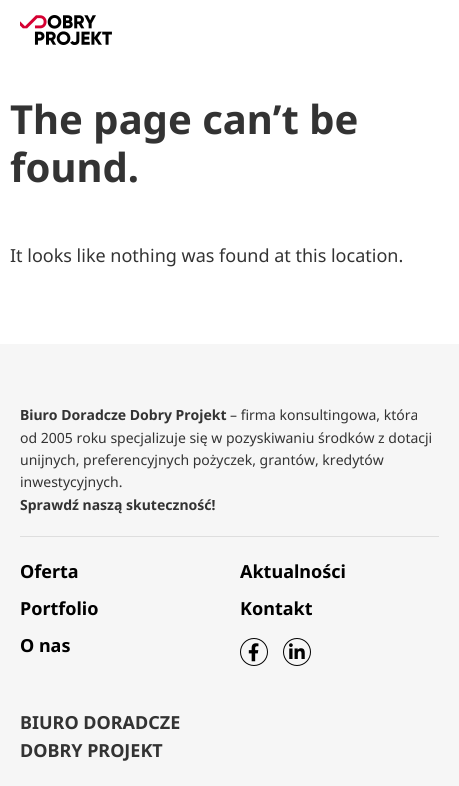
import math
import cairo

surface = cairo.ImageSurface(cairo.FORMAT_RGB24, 459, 786)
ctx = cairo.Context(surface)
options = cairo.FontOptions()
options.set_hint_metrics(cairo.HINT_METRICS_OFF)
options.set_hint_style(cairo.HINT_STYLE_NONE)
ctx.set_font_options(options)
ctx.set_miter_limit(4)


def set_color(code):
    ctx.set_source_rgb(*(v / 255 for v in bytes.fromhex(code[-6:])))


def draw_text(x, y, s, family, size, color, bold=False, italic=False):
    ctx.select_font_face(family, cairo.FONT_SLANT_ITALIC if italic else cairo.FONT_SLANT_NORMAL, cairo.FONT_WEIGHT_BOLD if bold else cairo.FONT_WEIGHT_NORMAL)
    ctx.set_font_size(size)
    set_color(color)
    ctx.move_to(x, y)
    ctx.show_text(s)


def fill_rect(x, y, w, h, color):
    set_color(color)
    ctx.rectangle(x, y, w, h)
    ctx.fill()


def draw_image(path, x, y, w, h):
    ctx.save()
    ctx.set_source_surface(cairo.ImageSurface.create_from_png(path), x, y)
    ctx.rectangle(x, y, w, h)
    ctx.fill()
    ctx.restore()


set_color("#ffffff")
ctx.paint()
draw_image("assets/img1.png", 20, 15, 92, 30)
draw_text(10, 134, "The page can’t be", "Noto Sans", 40, "#333333", bold=True)
draw_text(10, 182, "found.", "Noto Sans", 40, "#333333", bold=True)
draw_text(10, 262, "It looks like nothing was found at this location.", "Noto Sans", 18, "#333333")
fill_rect(0, 344, 459, 442, "#f6f6f6")
fill_rect(20, 536, 419, 1, "#dedede")
draw_text(20, 420, "Biuro Doradcze Dobry Projekt", "Noto Sans", 14, "#333333", bold=True)
draw_text(230, 420, "– firma konsultingowa, która", "Noto Sans", 14, "#333333")
draw_text(20, 443, "od 2005 roku specjalizuje się w pozyskiwaniu środków z dotacji", "Noto Sans", 14, "#333333")
draw_text(20, 465, "unijnych, preferencyjnych pożyczek, grantów, kredytów", "Noto Sans", 14, "#333333")
draw_text(20, 487, "inwestycyjnych.", "Noto Sans", 14, "#333333")
draw_text(20, 510, "Sprawdź naszą skuteczność!", "Noto Sans", 14, "#333333", bold=True)
draw_text(20, 578, "Oferta", "Noto Sans", 18, "#000000", bold=True)
draw_text(20, 615, "Portfolio", "Noto Sans", 18, "#000000", bold=True)
draw_text(20, 652, "O nas", "Noto Sans", 18, "#000000", bold=True)
draw_text(240, 578, "Aktualności", "Noto Sans", 18, "#000000", bold=True)
draw_text(240, 615, "Kontakt", "Noto Sans", 18, "#000000", bold=True)
ctx.new_path()
ctx.arc(254, 652, 13.5, 0, 2 * math.pi)
ctx.set_line_width(1)
ctx.stroke()
draw_image("assets/img2.png", 248, 643, 11, 19)
ctx.arc(297, 652, 13.5, 0, 2 * math.pi)
ctx.stroke()
draw_image("assets/img3.png", 289, 643, 16, 16)
draw_text(20, 729, "BIURO DORADCZE", "Noto Sans", 18, "#333333", bold=True)
draw_text(20, 757, "DOBRY PROJEKT", "Noto Sans", 18, "#333333", bold=True)
surface.write_to_png("output.png")
